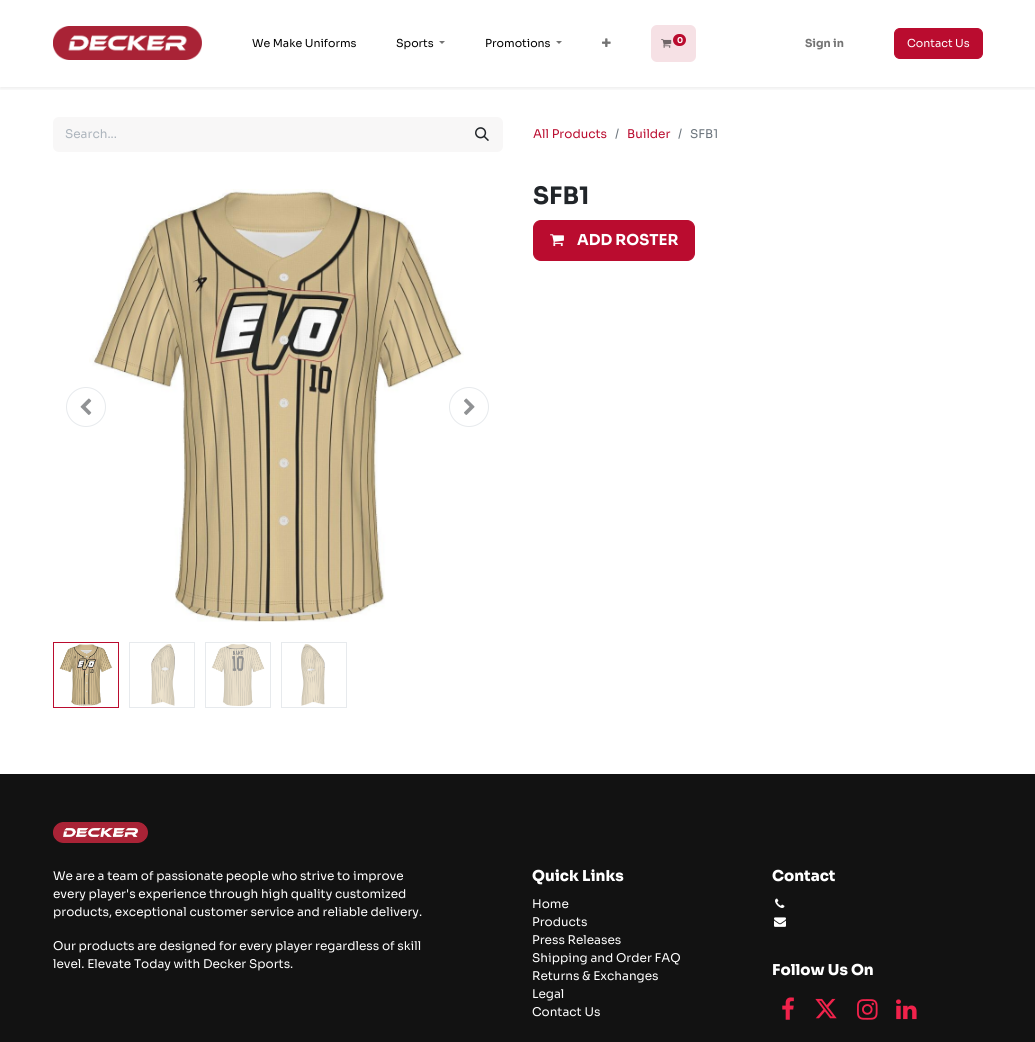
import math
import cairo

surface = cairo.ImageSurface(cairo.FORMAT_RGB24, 1035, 1042)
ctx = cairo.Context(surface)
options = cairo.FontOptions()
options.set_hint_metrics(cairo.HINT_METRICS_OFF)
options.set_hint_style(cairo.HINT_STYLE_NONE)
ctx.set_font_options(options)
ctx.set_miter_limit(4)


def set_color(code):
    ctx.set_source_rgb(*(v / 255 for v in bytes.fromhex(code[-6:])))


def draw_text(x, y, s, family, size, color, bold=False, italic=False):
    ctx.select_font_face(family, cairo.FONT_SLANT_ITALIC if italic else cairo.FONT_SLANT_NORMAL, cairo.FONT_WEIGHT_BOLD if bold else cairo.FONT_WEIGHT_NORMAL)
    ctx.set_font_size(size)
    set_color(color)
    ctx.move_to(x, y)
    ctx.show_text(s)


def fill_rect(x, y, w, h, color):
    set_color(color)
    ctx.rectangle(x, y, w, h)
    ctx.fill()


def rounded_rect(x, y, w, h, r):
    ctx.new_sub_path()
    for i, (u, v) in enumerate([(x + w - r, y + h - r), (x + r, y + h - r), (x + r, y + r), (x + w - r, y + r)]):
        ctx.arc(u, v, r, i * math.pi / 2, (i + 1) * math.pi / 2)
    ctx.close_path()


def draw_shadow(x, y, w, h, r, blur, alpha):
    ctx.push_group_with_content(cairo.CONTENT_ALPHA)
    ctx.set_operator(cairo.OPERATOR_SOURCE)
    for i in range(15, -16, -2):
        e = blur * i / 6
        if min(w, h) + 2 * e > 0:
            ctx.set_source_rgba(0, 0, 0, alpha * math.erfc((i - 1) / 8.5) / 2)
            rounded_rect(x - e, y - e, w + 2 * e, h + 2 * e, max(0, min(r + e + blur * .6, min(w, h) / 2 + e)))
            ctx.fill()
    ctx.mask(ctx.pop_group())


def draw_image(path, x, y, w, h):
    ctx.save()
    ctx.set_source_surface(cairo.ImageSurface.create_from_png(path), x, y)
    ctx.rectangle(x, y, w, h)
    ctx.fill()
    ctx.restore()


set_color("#ffffff")
ctx.paint()
ctx.save()
ctx.rectangle(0, 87, 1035, 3)
ctx.clip()
set_color("#000000")
draw_shadow(0, 2, 1035, 87, 0, 2, 0.07)
ctx.restore()
draw_image("assets/img1.png", 53, 26, 149, 34)
draw_text(252, 47, "We Make Uniforms", "Sora", 11, "#000000")
draw_text(396, 47, "Sports", "Sora", 11, "#000000")
set_color("#737373")
ctx.new_path()
ctx.move_to(439, 41)
ctx.line_to(445, 41)
ctx.line_to(442, 44)
ctx.close_path()
ctx.fill()
draw_text(485, 47, "Promotions", "Sora", 11, "#000000")
set_color("#737373")
ctx.new_path()
ctx.move_to(556, 41)
ctx.line_to(562, 41)
ctx.line_to(559, 44)
ctx.close_path()
ctx.fill()
draw_image("assets/img2.png", 602, 38, 9, 9)
set_color("#f6e1e5")
rounded_rect(651, 25, 45, 37, 6)
ctx.fill()
draw_image("assets/img3.png", 661, 39, 11, 9)
set_color("#ba0c2f")
rounded_rect(673, 34, 13, 12, 6)
ctx.fill()
draw_text(677, 43, "0", "Sora", 8, "#ffffff", bold=True)
draw_text(805, 47, "Sign in", "Sora", 11, "#737373", bold=True)
set_color("#ba0c2f")
rounded_rect(894.5, 28.5, 88, 30, 5.5)
ctx.fill_preserve()
ctx.set_line_width(1)
ctx.stroke()
draw_text(907, 47, "Contact Us", "Sora", 11, "#ffffff")
set_color("#f8f7f7")
ctx.new_path()
ctx.move_to(59, 117)
ctx.line_to(463, 117)
ctx.line_to(463, 152)
ctx.line_to(59, 152)
ctx.curve_to(55.5, 152, 53, 149.5, 53, 146)
ctx.line_to(53, 123)
ctx.curve_to(53, 119.5, 55.5, 117, 59, 117)
ctx.close_path()
ctx.fill()
draw_text(65, 138, "Search...", "Sora", 12, "#adb5bd")
set_color("#f8f7f7")
ctx.new_path()
ctx.move_to(462, 117)
ctx.line_to(497, 117)
ctx.curve_to(500.5, 117, 503, 119.5, 503, 123)
ctx.line_to(503, 146)
ctx.curve_to(503, 149.5, 500.5, 152, 497, 152)
ctx.line_to(462, 152)
ctx.close_path()
ctx.fill()
draw_image("assets/img4.png", 475, 127, 14, 14)
draw_text(533, 138, "All Products", "Sora", 12, "#ba0c2f")
draw_text(615, 138, "/", "Sora", 12, "#6c757d")
draw_text(627, 138, "Builder", "Sora", 12, "#ba0c2f")
draw_text(678, 138, "/", "Sora", 12, "#6c757d")
draw_text(690, 138, "SFB1", "Sora", 12, "#6c757d")
draw_image("assets/img6.png", 89, 189, 375, 433)
ctx.arc(86, 407, 19.5, 0, 2 * math.pi)
set_color("#e7eaed")
ctx.stroke()
draw_image("assets/img5.png", 80, 398, 12, 17)
ctx.arc(469, 407, 19.5, 0, 2 * math.pi)
ctx.stroke()
draw_image("assets/img7.png", 464, 398, 11, 17)
ctx.rectangle(53.5, 642.5, 65, 65)
set_color("#ba0c2f")
ctx.stroke()
draw_image("assets/img8.png", 59, 644, 54, 62)
ctx.rectangle(129.5, 642.5, 65, 65)
set_color("#e7eaed")
ctx.stroke()
draw_image("assets/img9.png", 151, 644, 24, 62)
ctx.rectangle(205.5, 642.5, 65, 65)
ctx.stroke()
draw_image("assets/img10.png", 211, 644, 54, 62)
ctx.rectangle(281.5, 642.5, 65, 65)
ctx.stroke()
draw_image("assets/img11.png", 301, 644, 24, 62)
draw_text(533, 204, "SFB1", "Sora", 24, "#212529", bold=True)
set_color("#ba0c2f")
rounded_rect(533.5, 220.5, 161, 40, 7.5)
ctx.fill_preserve()
ctx.stroke()
draw_image("assets/img12.png", 550, 234, 14, 13)
draw_text(577, 245, "ADD ROSTER", "Sora", 15, "#ffffff", bold=True)
fill_rect(0, 774, 1035, 268, "#121212")
draw_image("assets/img13.png", 53, 822, 95, 21)
draw_text(53, 880, "We are a team of passionate people who strive to improve", "Sora", 12, "#ffffff")
draw_text(53, 898, "every player's experience through high quality customized", "Sora", 12, "#ffffff")
draw_text(53, 916, "products, exceptional customer service and reliable delivery.", "Sora", 12, "#ffffff")
draw_text(53, 950, "Our products are designed for every player regardless of skill", "Sora", 12, "#ffffff")
draw_text(53, 968, "level. Elevate Today with Decker Sports.", "Sora", 12, "#ffffff")
draw_text(532, 881, "Quick Links", "Sora ExtraBold", 15, "#ffffff")
draw_text(532, 908, "Home", "Sora", 12, "#ffffff")
draw_text(532, 926, "Products", "Sora", 12, "#ffffff")
draw_text(532, 944, "Press Releases", "Sora", 12, "#ffffff")
draw_text(532, 962, "Shipping and Order FAQ", "Sora", 12, "#ffffff")
draw_text(532, 980, "Returns & Exchanges", "Sora", 12, "#ffffff")
draw_text(532, 998, "Legal", "Sora", 12, "#ffffff")
draw_text(532, 1016, "Contact Us", "Sora", 12, "#ffffff")
draw_text(772, 881, "Contact", "Sora ExtraBold", 15, "#ffffff")
draw_image("assets/img14.png", 775, 898, 10, 10)
draw_image("assets/img15.png", 774, 917, 12, 10)
draw_text(772, 975, "Follow Us On", "Sora ExtraBold", 15, "#ffffff")
draw_image("assets/img16.png", 782, 997, 12, 23)
draw_image("assets/img17.png", 815, 998, 22, 21)
draw_image("assets/img18.png", 857, 999, 21, 21)
draw_image("assets/img19.png", 896, 999, 21, 21)
surface.write_to_png("output.png")
